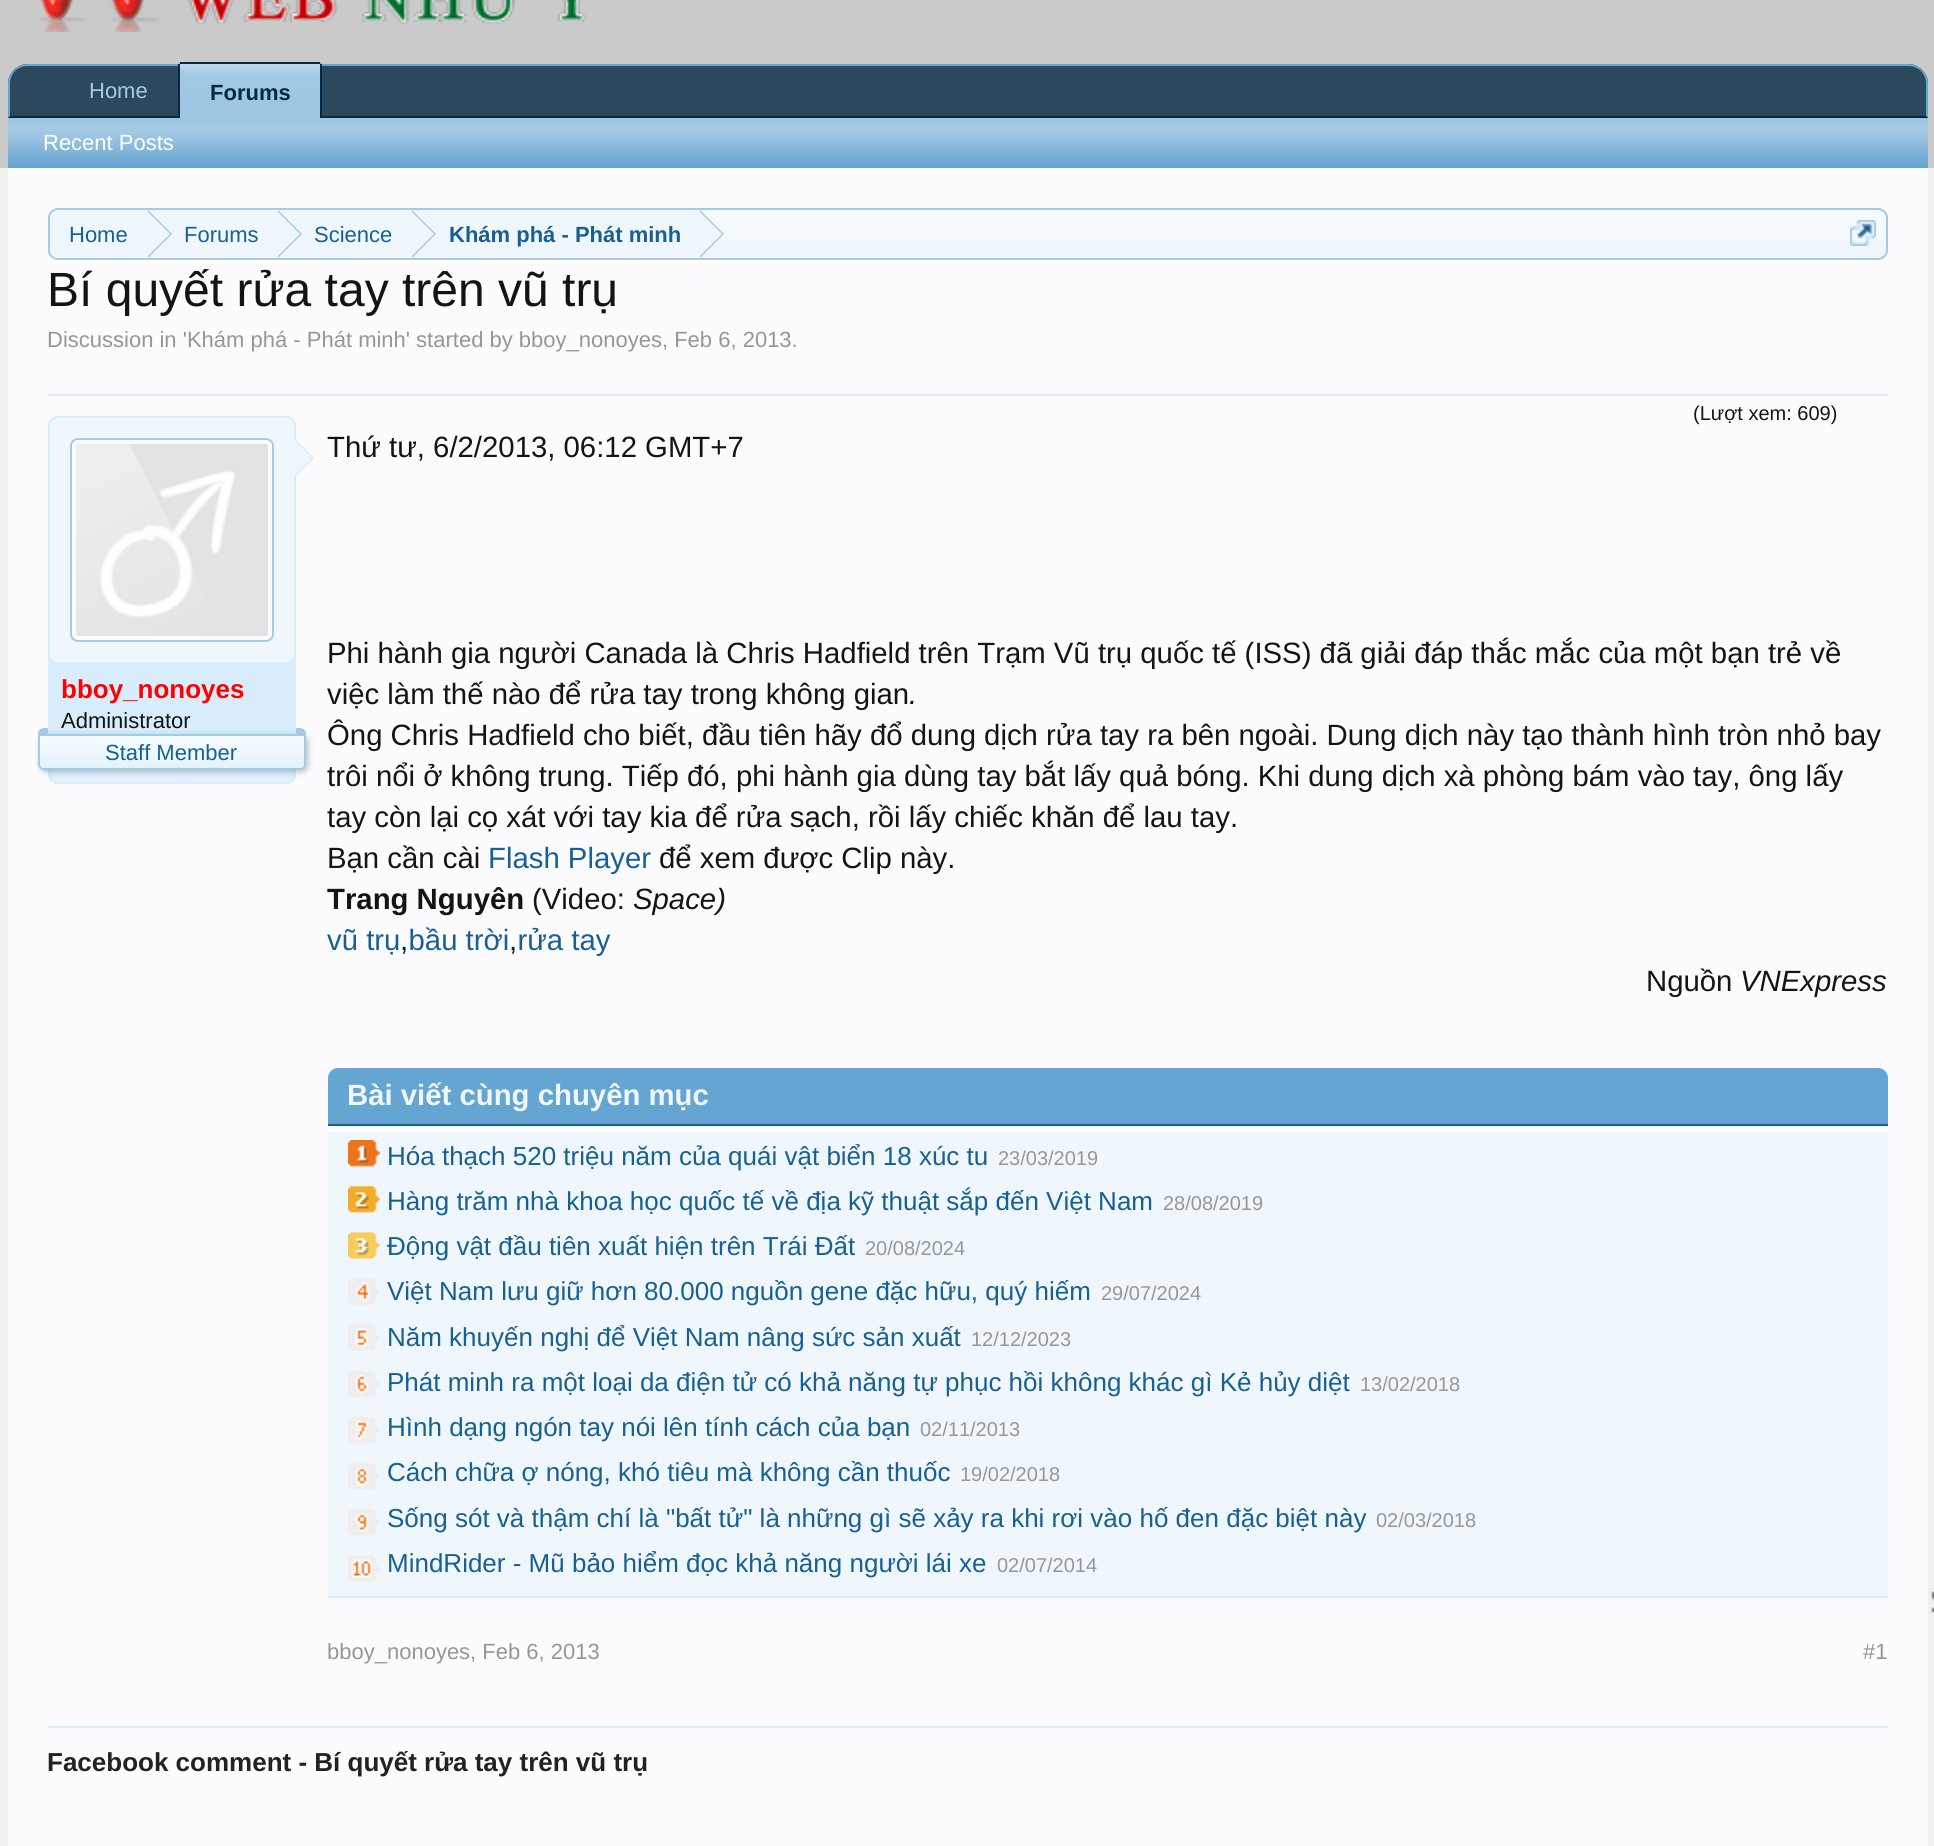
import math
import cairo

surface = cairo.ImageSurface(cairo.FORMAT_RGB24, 1934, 1846)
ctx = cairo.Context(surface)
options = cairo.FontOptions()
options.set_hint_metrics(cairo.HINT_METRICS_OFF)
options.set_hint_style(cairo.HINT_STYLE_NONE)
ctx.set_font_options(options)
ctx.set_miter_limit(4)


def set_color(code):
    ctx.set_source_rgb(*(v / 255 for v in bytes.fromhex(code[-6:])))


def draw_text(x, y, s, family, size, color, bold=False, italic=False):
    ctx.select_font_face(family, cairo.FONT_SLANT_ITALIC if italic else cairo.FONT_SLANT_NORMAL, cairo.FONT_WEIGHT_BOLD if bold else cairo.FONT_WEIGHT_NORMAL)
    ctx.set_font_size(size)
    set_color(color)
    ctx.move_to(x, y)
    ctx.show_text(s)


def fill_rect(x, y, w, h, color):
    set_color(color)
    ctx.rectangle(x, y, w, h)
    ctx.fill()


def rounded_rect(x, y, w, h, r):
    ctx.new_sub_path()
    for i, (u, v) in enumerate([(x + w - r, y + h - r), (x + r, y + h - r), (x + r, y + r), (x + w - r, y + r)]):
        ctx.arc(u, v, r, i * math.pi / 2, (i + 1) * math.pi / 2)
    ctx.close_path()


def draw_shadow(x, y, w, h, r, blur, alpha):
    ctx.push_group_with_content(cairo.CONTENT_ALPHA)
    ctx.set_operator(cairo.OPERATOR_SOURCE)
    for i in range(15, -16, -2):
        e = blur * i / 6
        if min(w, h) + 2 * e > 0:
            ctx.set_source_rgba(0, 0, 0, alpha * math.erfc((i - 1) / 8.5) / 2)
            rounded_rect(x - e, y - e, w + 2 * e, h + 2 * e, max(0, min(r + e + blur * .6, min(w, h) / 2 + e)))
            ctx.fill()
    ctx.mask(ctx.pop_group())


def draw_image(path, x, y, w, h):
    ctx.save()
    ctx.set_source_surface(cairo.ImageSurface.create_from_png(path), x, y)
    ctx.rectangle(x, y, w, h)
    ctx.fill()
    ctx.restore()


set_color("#f0f0f0")
ctx.paint()
fill_rect(0, 0, 1934, 168, "#cacaca")
draw_image("assets/img1.png", 39, 0, 548, 32)
set_color("#2b485c")
ctx.new_path()
ctx.move_to(28, 64)
ctx.line_to(1908, 64)
ctx.curve_to(1919, 64, 1928, 73, 1928, 84)
ctx.line_to(1928, 118)
ctx.line_to(8, 118)
ctx.line_to(8, 84)
ctx.curve_to(8, 73, 17, 64, 28, 64)
ctx.close_path()
ctx.fill()
set_color("#65a5d1")
ctx.new_path()
ctx.move_to(28, 64)
ctx.curve_to(22, 64, 18, 66, 14, 70)
ctx.line_to(15, 71)
ctx.curve_to(18, 68, 23, 66, 28, 66)
ctx.line_to(1908, 66)
ctx.curve_to(1913, 66, 1918, 68, 1921, 71)
ctx.line_to(1922, 70)
ctx.curve_to(1918, 66, 1914, 64, 1908, 64)
ctx.close_path()
ctx.fill()
ctx.new_path()
ctx.move_to(1928, 118)
ctx.line_to(1928, 84)
ctx.curve_to(1928, 78, 1926, 74, 1922, 70)
ctx.line_to(1921, 71)
ctx.curve_to(1924, 74, 1926, 79, 1926, 84)
ctx.line_to(1926, 116)
ctx.close_path()
ctx.fill()
set_color("#032a46")
ctx.new_path()
ctx.move_to(1928, 118)
ctx.line_to(1926, 116)
ctx.line_to(10, 116)
ctx.line_to(8, 118)
ctx.close_path()
ctx.fill()
set_color("#65a5d1")
ctx.new_path()
ctx.move_to(8, 118)
ctx.line_to(10, 116)
ctx.line_to(10, 84)
ctx.curve_to(10, 79, 12, 74, 15, 71)
ctx.line_to(14, 70)
ctx.curve_to(10, 74, 8, 78, 8, 84)
ctx.close_path()
ctx.fill()
draw_text(89, 98, "Home", "Liberation Sans", 22, "#a5cae4")
set_color("#65a5d1")
ctx.new_path()
ctx.move_to(182, 62)
ctx.line_to(318, 62)
ctx.curve_to(320, 62, 322, 64, 322, 66)
ctx.line_to(322, 118)
ctx.line_to(178, 118)
ctx.line_to(178, 66)
ctx.curve_to(178, 64, 180, 62, 182, 62)
ctx.close_path()
ctx.fill()
draw_image("assets/img2.png", 180, 64, 140, 54)
fill_rect(180, 62, 140, 2, "#032a46")
fill_rect(320, 64, 2, 54, "#032a46")
fill_rect(178, 64, 2, 54, "#032a46")
draw_text(210, 100, "Forums", "Liberation Sans", 22, "#032a46", bold=True)
fill_rect(8, 118, 1920, 50, "#65a5d1")
draw_image("assets/img3.png", 8, 118, 1920, 47)
draw_text(43, 150, "Recent Posts", "Liberation Sans", 22, "#ffffff")
fill_rect(8, 168, 1920, 1678, "#fcfcff")
set_color("#f0f7fc")
rounded_rect(48, 208, 1840, 52, 10)
ctx.fill()
draw_image("assets/img4.png", 48, 210, 1840, 31)
rounded_rect(49, 209, 1838, 50, 9)
set_color("#a5cae4")
ctx.stroke()
ctx.save()
rounded_rect(50, 210, 1836, 48, 8)
ctx.clip()
set_color("#f0f7fc")
ctx.new_path()
ctx.move_to(60, 210)
ctx.line_to(148, 210)
ctx.line_to(148, 260)
ctx.line_to(60, 260)
ctx.curve_to(54.5, 260, 50, 255.5, 50, 250)
ctx.line_to(50, 220)
ctx.curve_to(50, 214.5, 54.5, 210, 60, 210)
ctx.close_path()
ctx.fill()
ctx.restore()
draw_text(69, 242, "Home", "Liberation Sans", 22, "#176093")
fill_rect(148, 210, 552, 31, "#f0f7fc")
set_color("#a5cae4")
ctx.new_path()
ctx.move_to(148, 258)
ctx.line_to(148, 210)
ctx.line_to(172, 234)
ctx.close_path()
ctx.fill()
set_color("#f0f7fc")
ctx.new_path()
ctx.move_to(146, 258)
ctx.line_to(146, 210)
ctx.line_to(170, 234)
ctx.close_path()
ctx.fill()
draw_text(184, 242, "Forums", "Liberation Sans", 22, "#176093")
set_color("#a5cae4")
ctx.new_path()
ctx.move_to(278, 258)
ctx.line_to(278, 210)
ctx.line_to(302, 234)
ctx.close_path()
ctx.fill()
set_color("#f0f7fc")
ctx.new_path()
ctx.move_to(276, 258)
ctx.line_to(276, 210)
ctx.line_to(300, 234)
ctx.close_path()
ctx.fill()
draw_text(314, 242, "Science", "Liberation Sans", 22, "#176093")
set_color("#a5cae4")
ctx.new_path()
ctx.move_to(412, 258)
ctx.line_to(412, 210)
ctx.line_to(436, 234)
ctx.close_path()
ctx.fill()
set_color("#f0f7fc")
ctx.new_path()
ctx.move_to(410, 258)
ctx.line_to(410, 210)
ctx.line_to(434, 234)
ctx.close_path()
ctx.fill()
draw_text(449, 242, "Khám phá - Phát minh", "Liberation Sans", 22, "#176093", bold=True)
set_color("#a5cae4")
ctx.new_path()
ctx.move_to(700, 258)
ctx.line_to(700, 210)
ctx.line_to(724, 234)
ctx.close_path()
ctx.fill()
set_color("#f0f7fc")
ctx.new_path()
ctx.move_to(698, 258)
ctx.line_to(698, 210)
ctx.line_to(722, 234)
ctx.close_path()
ctx.fill()
draw_image("assets/img5.png", 1850, 220, 26, 26)
draw_text(47, 306, "Bí quyết rửa tay trên vũ trụ", "Liberation Sans", 48, "#141414")
draw_text(47, 347, "Discussion in 'Khám phá - Phát minh' started by bboy_nonoyes, Feb 6, 2013.", "Liberation Sans", 22, "#969696")
fill_rect(48, 394, 1840, 2, "#d7edfc")
rounded_rect(48, 416, 248, 368, 10)
ctx.fill()
draw_image("assets/img6.png", 48, 770, 248, 12)
rounded_rect(49, 417, 246, 366, 9)
ctx.stroke()
set_color("#f0f7fc")
rounded_rect(50, 418, 244, 244, 8)
ctx.fill()
set_color("#fcfcff")
rounded_rect(71, 439, 202, 202, 7)
ctx.fill_preserve()
set_color("#a5cae4")
ctx.stroke()
draw_image("assets/img7.png", 76, 444, 192, 192)
set_color("#d7edfc")
ctx.new_path()
ctx.move_to(294, 478)
ctx.line_to(294, 438)
ctx.line_to(314, 458)
ctx.close_path()
ctx.fill()
set_color("#f0f7fc")
ctx.new_path()
ctx.move_to(292, 478)
ctx.line_to(292, 438)
ctx.line_to(312, 458)
ctx.close_path()
ctx.fill()
draw_text(61, 698, "bboy_nonoyes", "Liberation Sans", 26, "#ff0000", bold=True)
draw_text(61, 728, "Administrator", "Liberation Sans", 22, "#141414")
set_color("#000000")
draw_shadow(40, 736, 268, 36, 6, 3, 0.25)
set_color("#d7edfc")
ctx.new_path()
ctx.move_to(38, 734)
ctx.line_to(306, 734)
ctx.line_to(306, 764)
ctx.curve_to(306, 767.5, 303.5, 770, 300, 770)
ctx.line_to(44, 770)
ctx.curve_to(40.5, 770, 38, 767.5, 38, 764)
ctx.close_path()
ctx.fill()
draw_image("assets/img8.png", 38, 736, 268, 34)
ctx.new_path()
ctx.move_to(39, 735)
ctx.line_to(305, 735)
ctx.line_to(305, 764)
ctx.curve_to(305, 767, 303, 769, 300, 769)
ctx.line_to(44, 769)
ctx.curve_to(41, 769, 39, 767, 39, 764)
ctx.close_path()
set_color("#a5cae4")
ctx.stroke()
ctx.new_path()
ctx.move_to(44, 728)
ctx.line_to(48, 728)
ctx.line_to(48, 736)
ctx.line_to(38, 736)
ctx.line_to(38, 734)
ctx.curve_to(38, 730.5, 40.5, 728, 44, 728)
ctx.close_path()
ctx.fill()
ctx.new_path()
ctx.move_to(296, 728)
ctx.line_to(300, 728)
ctx.curve_to(303.5, 728, 306, 730.5, 306, 734)
ctx.line_to(306, 736)
ctx.line_to(296, 736)
ctx.close_path()
ctx.fill()
draw_text(105, 760, "Staff Member", "Liberation Sans", 22, "#176093")
draw_text(1693, 420, "(Lượt xem: 609)", "Liberation Sans", 20, "#141414")
draw_text(327, 457, "Thứ tư, 6/2/2013, 06:12 GMT+7", "Liberation Sans", 29.33, "#141414")
draw_text(327, 663, "Phi hành gia người Canada là Chris Hadfield trên Trạm Vũ trụ quốc tế (ISS) đã giải đáp thắc mắc của một bạn trẻ về", "Liberation Sans", 29.33, "#141414")
draw_text(327, 704, "việc làm thế nào để rửa tay trong không gian", "Liberation Sans", 29.33, "#141414")
draw_text(909, 704, ".", "Liberation Sans", 29.33, "#141414", italic=True)
draw_text(327, 745, "Ông Chris Hadfield cho biết, đầu tiên hãy đổ dung dịch rửa tay ra bên ngoài. Dung dịch này tạo thành hình tròn nhỏ bay", "Liberation Sans", 29.33, "#141414")
draw_text(327, 786, "trôi nổi ở không trung. Tiếp đó, phi hành gia dùng tay bắt lấy quả bóng. Khi dung dịch xà phòng bám vào tay, ông lấy", "Liberation Sans", 29.33, "#141414")
draw_text(327, 827, "tay còn lại cọ xát với tay kia để rửa sạch, rồi lấy chiếc khăn để lau tay.", "Liberation Sans", 29.33, "#141414")
draw_text(327, 868, "Bạn cần cài", "Liberation Sans", 29.33, "#141414")
draw_text(488, 868, "Flash Player", "Liberation Sans", 29.33, "#176093")
draw_text(659, 868, "để xem được Clip này.", "Liberation Sans", 29.33, "#141414")
draw_text(327, 909, "Trang Nguyên", "Liberation Sans", 29.33, "#141414", bold=True)
draw_text(532, 909, "(Video:", "Liberation Sans", 29.33, "#141414")
draw_text(633, 909, "Space)", "Liberation Sans", 29.33, "#141414", italic=True)
draw_text(327, 950, "vũ trụ bầu trời rửa tay", "Liberation Sans", 29.33, "#176093")
draw_text(400, 950, ",", "Liberation Sans", 29.33, "#141414")
draw_text(509, 950, ",", "Liberation Sans", 29.33, "#141414")
draw_text(1646, 991, "Nguồn", "Liberation Sans", 29.33, "#141414")
draw_text(1740, 991, "VNExpress", "Liberation Sans", 29.33, "#141414", italic=True)
set_color("#65a5d1")
ctx.new_path()
ctx.move_to(338, 1068)
ctx.line_to(1878, 1068)
ctx.curve_to(1883.5, 1068, 1888, 1072.5, 1888, 1078)
ctx.line_to(1888, 1126)
ctx.line_to(328, 1126)
ctx.line_to(328, 1078)
ctx.curve_to(328, 1072.5, 332.5, 1068, 338, 1068)
ctx.close_path()
ctx.fill()
fill_rect(328, 1124, 1560, 2, "#176093")
draw_text(347, 1105, "Bài viết cùng chuyên mục", "Liberation Sans", 29.33, "#f0f7fc", bold=True)
fill_rect(328, 1132, 1560, 464, "#f0f7fc")
draw_image("assets/img9.png", 348, 1140, 32, 442)
fill_rect(328, 1596, 1560, 2, "#d7edfc")
draw_text(387, 1165, "Hóa thạch 520 triệu năm của quái vật biển 18 xúc tu", "Liberation Sans", 26, "#176093")
draw_text(998, 1165, "23/03/2019", "Liberation Sans", 20, "#969696")
draw_text(387, 1210, "Hàng trăm nhà khoa học quốc tế về địa kỹ thuật sắp đến Việt Nam", "Liberation Sans", 26, "#176093")
draw_text(1163, 1210, "28/08/2019", "Liberation Sans", 20, "#969696")
draw_text(387, 1255, "Động vật đầu tiên xuất hiện trên Trái Đất", "Liberation Sans", 26, "#176093")
draw_text(865, 1255, "20/08/2024", "Liberation Sans", 20, "#969696")
draw_text(387, 1300, "Việt Nam lưu giữ hơn 80.000 nguồn gene đặc hữu, quý hiếm", "Liberation Sans", 26, "#176093")
draw_text(1101, 1300, "29/07/2024", "Liberation Sans", 20, "#969696")
draw_text(387, 1346, "Năm khuyến nghị để Việt Nam nâng sức sản xuất", "Liberation Sans", 26, "#176093")
draw_text(971, 1346, "12/12/2023", "Liberation Sans", 20, "#969696")
draw_text(387, 1391, "Phát minh ra một loại da điện tử có khả năng tự phục hồi không khác gì Kẻ hủy diệt", "Liberation Sans", 26, "#176093")
draw_text(1360, 1391, "13/02/2018", "Liberation Sans", 20, "#969696")
draw_text(387, 1436, "Hình dạng ngón tay nói lên tính cách của bạn", "Liberation Sans", 26, "#176093")
draw_text(920, 1436, "02/11/2013", "Liberation Sans", 20, "#969696")
draw_text(387, 1481, "Cách chữa ợ nóng, khó tiêu mà không cần thuốc", "Liberation Sans", 26, "#176093")
draw_text(960, 1481, "19/02/2018", "Liberation Sans", 20, "#969696")
draw_text(387, 1527, "Sống sót và thậm chí là \"bất tử\" là những gì sẽ xảy ra khi rơi vào hố đen đặc biệt này", "Liberation Sans", 26, "#176093")
draw_text(1376, 1527, "02/03/2018", "Liberation Sans", 20, "#969696")
draw_text(387, 1572, "MindRider - Mũ bảo hiểm đọc khả năng người lái xe", "Liberation Sans", 26, "#176093")
draw_text(997, 1572, "02/07/2014", "Liberation Sans", 20, "#969696")
draw_text(327, 1659, "bboy_nonoyes, Feb 6, 2013", "Liberation Sans", 22, "#969696")
draw_text(1863, 1659, "#1", "Liberation Sans", 22, "#969696")
fill_rect(48, 1726, 1840, 2, "#d7edfc")
draw_text(47, 1771, "Facebook comment - Bí quyết rửa tay trên vũ trụ", "Liberation Sans", 26, "#222222", bold=True)
draw_image("assets/img10.png", 1931, 1591, 3, 22)
surface.write_to_png("output.png")
